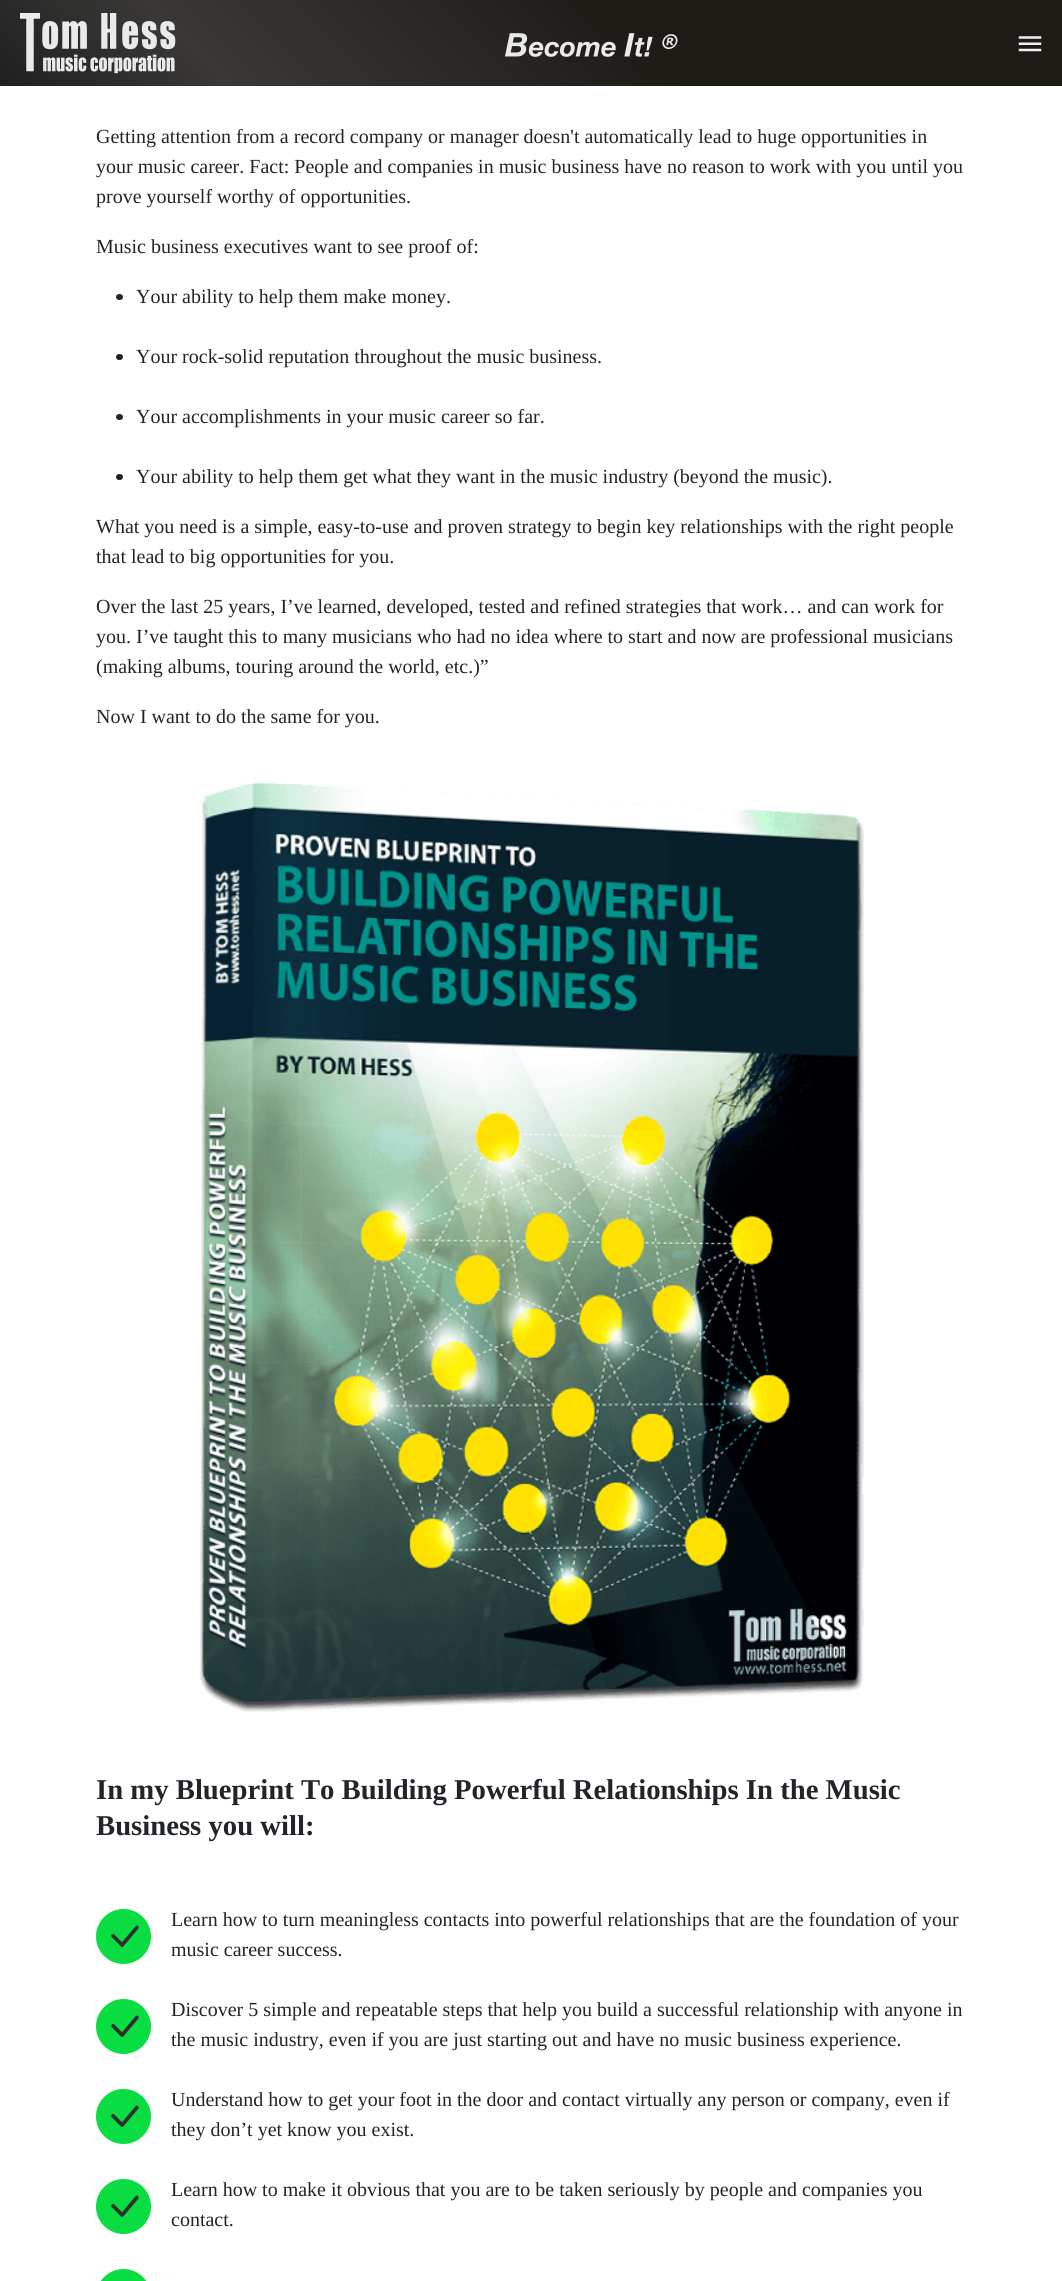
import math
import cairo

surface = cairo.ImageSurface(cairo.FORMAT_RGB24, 1062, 2281)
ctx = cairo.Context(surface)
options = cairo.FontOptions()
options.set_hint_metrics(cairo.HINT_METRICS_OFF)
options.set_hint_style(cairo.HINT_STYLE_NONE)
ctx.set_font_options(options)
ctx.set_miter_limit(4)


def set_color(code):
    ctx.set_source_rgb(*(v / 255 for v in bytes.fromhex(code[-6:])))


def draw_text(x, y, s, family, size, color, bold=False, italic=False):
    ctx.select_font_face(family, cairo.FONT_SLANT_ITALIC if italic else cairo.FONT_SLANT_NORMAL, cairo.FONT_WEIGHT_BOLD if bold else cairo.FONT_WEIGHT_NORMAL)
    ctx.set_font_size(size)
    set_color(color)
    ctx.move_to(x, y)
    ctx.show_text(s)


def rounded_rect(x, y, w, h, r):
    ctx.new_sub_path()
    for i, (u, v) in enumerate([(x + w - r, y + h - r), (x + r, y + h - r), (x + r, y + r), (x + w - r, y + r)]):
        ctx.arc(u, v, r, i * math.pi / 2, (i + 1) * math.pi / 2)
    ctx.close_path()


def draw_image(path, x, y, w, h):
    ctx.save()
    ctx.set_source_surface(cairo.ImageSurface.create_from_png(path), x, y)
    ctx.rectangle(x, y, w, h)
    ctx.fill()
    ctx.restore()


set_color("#ffffff")
ctx.paint()
gradient = cairo.LinearGradient(244, 330, 818, -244)
gradient.add_color_stop_rgba(0, 0.125, 0.125, 0.125, 1)
gradient.add_color_stop_rgba(0.2, 0.224, 0.22, 0.212, 1)
gradient.add_color_stop_rgba(0.6, 0.118, 0.106, 0.09, 1)
ctx.set_source(gradient)
ctx.rectangle(0, 0, 1062, 86)
ctx.fill()
draw_image("assets/img1.png", 20, 13, 156, 61)
draw_image("assets/img2.png", 505, 33, 173, 24)
draw_image("assets/img3.png", 1018, 36, 24, 16)
draw_text(96, 143, "Getting attention from a record company or manager doesn't automatically lead to huge opportunities in", "Liberation Serif", 20, "#212529")
draw_text(96, 173, "your music career. Fact: People and companies in music business have no reason to work with you until you", "Liberation Serif", 20, "#212529")
draw_text(96, 203, "prove yourself worthy of opportunities.", "Liberation Serif", 20, "#212529")
draw_text(96, 253, "Music business executives want to see proof of:", "Liberation Serif", 20, "#212529")
rounded_rect(116, 294, 7, 6, 3)
ctx.fill()
draw_text(136, 303, "Your ability to help them make money.", "Liberation Serif", 20, "#212529")
rounded_rect(116, 354, 7, 6, 3)
ctx.fill()
draw_text(136, 363, "Your rock-solid reputation throughout the music business.", "Liberation Serif", 20, "#212529")
rounded_rect(116, 414, 7, 6, 3)
ctx.fill()
draw_text(136, 423, "Your accomplishments in your music career so far.", "Liberation Serif", 20, "#212529")
rounded_rect(116, 474, 7, 6, 3)
ctx.fill()
draw_text(136, 483, "Your ability to help them get what they want in the music industry (beyond the music).", "Liberation Serif", 20, "#212529")
draw_text(96, 533, "What you need is a simple, easy-to-use and proven strategy to begin key relationships with the right people", "Liberation Serif", 20, "#212529")
draw_text(96, 563, "that lead to big opportunities for you.", "Liberation Serif", 20, "#212529")
draw_text(96, 613, "Over the last 25 years, I’ve learned, developed, tested and refined strategies that work… and can work for", "Liberation Serif", 20, "#212529")
draw_text(96, 643, "you. I’ve taught this to many musicians who had no idea where to start and now are professional musicians", "Liberation Serif", 20, "#212529")
draw_text(96, 673, "(making albums, touring around the world, etc.)”", "Liberation Serif", 20, "#212529")
draw_text(96, 723, "Now I want to do the same for you.", "Liberation Serif", 20, "#212529")
draw_image("assets/img4.png", 200, 782, 664, 930)
draw_text(96, 1799, "In my Blueprint To Building Powerful Relationships In the Music", "Liberation Serif", 28.7, "#212529", bold=True)
draw_text(96, 1835, "Business you will:", "Liberation Serif", 28.7, "#212529", bold=True)
set_color("#0add42")
ctx.new_path()
ctx.arc(123.5, 1936.5, 27.5, 0, 2 * math.pi)
ctx.fill()
draw_image("assets/img5.png", 111, 1925, 28, 22)
draw_text(171, 1926, "Learn how to turn meaningless contacts into powerful relationships that are the foundation of your", "Liberation Serif", 20, "#212529")
draw_text(171, 1956, "music career success.", "Liberation Serif", 20, "#212529")
set_color("#0add42")
ctx.new_path()
ctx.arc(123.5, 2026.5, 27.5, 0, 2 * math.pi)
ctx.fill()
draw_image("assets/img5.png", 111, 2015, 28, 22)
draw_text(171, 2016, "Discover 5 simple and repeatable steps that help you build a successful relationship with anyone in", "Liberation Serif", 20, "#212529")
draw_text(171, 2046, "the music industry, even if you are just starting out and have no music business experience.", "Liberation Serif", 20, "#212529")
set_color("#0add42")
ctx.new_path()
ctx.arc(123.5, 2116.5, 27.5, 0, 2 * math.pi)
ctx.fill()
draw_image("assets/img5.png", 111, 2105, 28, 22)
draw_text(171, 2106, "Understand how to get your foot in the door and contact virtually any person or company, even if", "Liberation Serif", 20, "#212529")
draw_text(171, 2136, "they don’t yet know you exist.", "Liberation Serif", 20, "#212529")
set_color("#0add42")
ctx.new_path()
ctx.arc(123.5, 2206.5, 27.5, 0, 2 * math.pi)
ctx.fill()
draw_image("assets/img5.png", 111, 2195, 28, 22)
draw_text(171, 2196, "Learn how to make it obvious that you are to be taken seriously by people and companies you", "Liberation Serif", 20, "#212529")
draw_text(171, 2226, "contact.", "Liberation Serif", 20, "#212529")
set_color("#0add42")
rounded_rect(96, 2269, 55, 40, 27.5)
ctx.fill()
surface.write_to_png("output.png")
